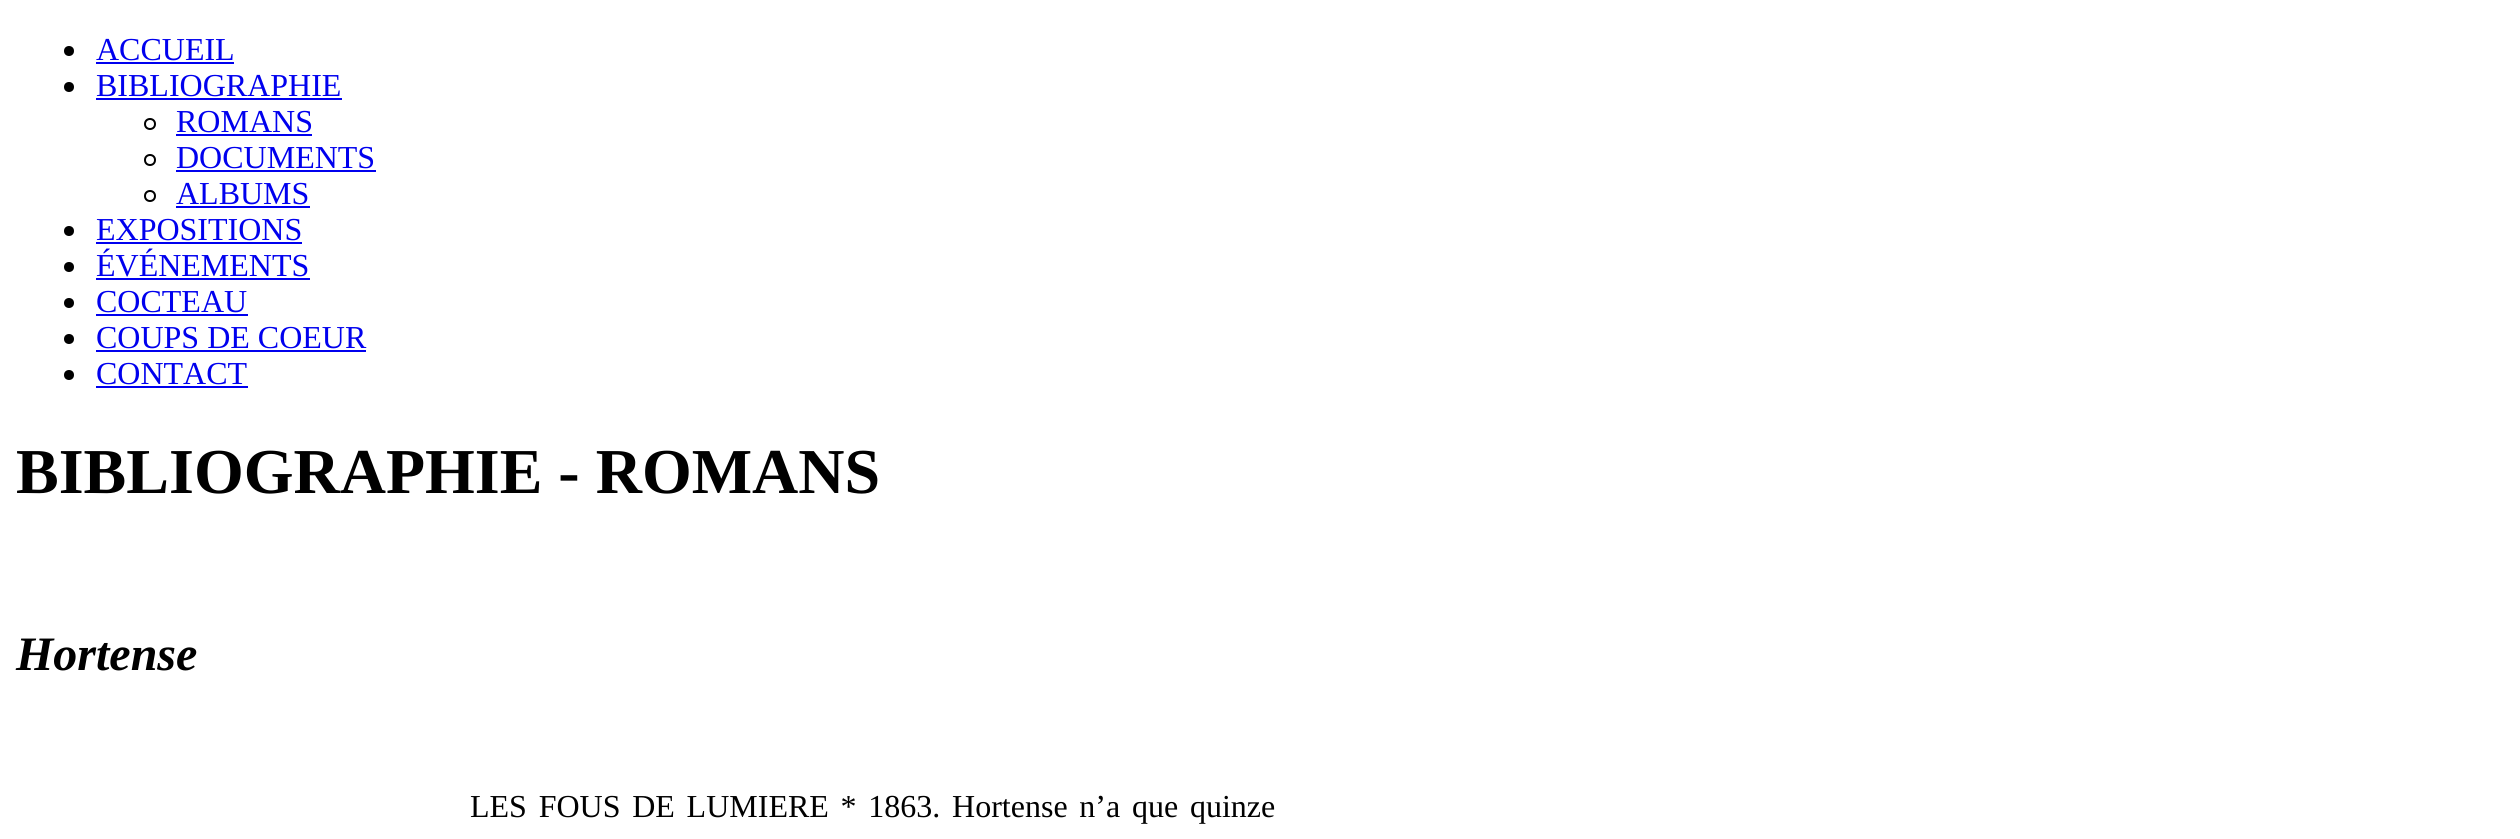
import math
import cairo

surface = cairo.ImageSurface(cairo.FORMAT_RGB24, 2520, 839)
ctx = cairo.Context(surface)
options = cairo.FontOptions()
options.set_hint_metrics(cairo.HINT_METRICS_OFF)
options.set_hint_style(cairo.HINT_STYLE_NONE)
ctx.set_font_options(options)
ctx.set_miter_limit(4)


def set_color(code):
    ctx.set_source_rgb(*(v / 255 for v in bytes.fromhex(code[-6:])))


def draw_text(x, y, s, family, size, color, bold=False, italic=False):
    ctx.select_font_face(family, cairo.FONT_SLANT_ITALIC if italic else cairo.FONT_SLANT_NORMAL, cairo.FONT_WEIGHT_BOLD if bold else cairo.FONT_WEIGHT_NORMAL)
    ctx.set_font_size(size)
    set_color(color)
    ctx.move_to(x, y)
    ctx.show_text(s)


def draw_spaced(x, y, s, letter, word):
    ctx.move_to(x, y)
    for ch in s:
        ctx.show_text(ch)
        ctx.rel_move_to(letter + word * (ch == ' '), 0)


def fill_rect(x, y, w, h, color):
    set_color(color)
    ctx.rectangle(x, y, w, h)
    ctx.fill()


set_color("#ffffff")
ctx.paint()
set_color("#000000")
ctx.arc(69, 51, 5, 0, 2 * math.pi)
ctx.fill()
draw_text(96, 60, "ACCUEIL", "Liberation Serif", 32, "#0000ee")
fill_rect(96, 62, 138, 2, "#0000ee")
set_color("#000000")
ctx.new_path()
ctx.arc(69, 87, 5, 0, 2 * math.pi)
ctx.fill()
draw_text(96, 96, "BIBLIOGRAPHIE", "Liberation Serif", 32, "#0000ee")
fill_rect(96, 98, 246, 2, "#0000ee")
ctx.new_path()
ctx.arc(150, 124, 5, 0, 2 * math.pi)
set_color("#000000")
ctx.stroke()
draw_text(176, 132, "ROMANS", "Liberation Serif", 32, "#0000ee")
fill_rect(176, 134, 136, 2, "#0000ee")
ctx.new_path()
ctx.arc(150, 160, 5, 0, 2 * math.pi)
set_color("#000000")
ctx.stroke()
draw_text(176, 168, "DOCUMENTS", "Liberation Serif", 32, "#0000ee")
fill_rect(176, 170, 200, 2, "#0000ee")
ctx.new_path()
ctx.arc(150, 196, 5, 0, 2 * math.pi)
set_color("#000000")
ctx.stroke()
draw_text(176, 204, "ALBUMS", "Liberation Serif", 32, "#0000ee")
fill_rect(176, 206, 134, 2, "#0000ee")
set_color("#000000")
ctx.new_path()
ctx.arc(69, 231, 5, 0, 2 * math.pi)
ctx.fill()
draw_text(96, 240, "EXPOSITIONS", "Liberation Serif", 32, "#0000ee")
fill_rect(96, 242, 206, 2, "#0000ee")
set_color("#000000")
ctx.new_path()
ctx.arc(69, 267, 5, 0, 2 * math.pi)
ctx.fill()
draw_text(96, 276, "ÉVÉNEMENTS", "Liberation Serif", 32, "#0000ee")
fill_rect(96, 278, 214, 2, "#0000ee")
set_color("#000000")
ctx.new_path()
ctx.arc(69, 303, 5, 0, 2 * math.pi)
ctx.fill()
draw_text(96, 312, "COCTEAU", "Liberation Serif", 32, "#0000ee")
fill_rect(96, 314, 152, 2, "#0000ee")
set_color("#000000")
ctx.new_path()
ctx.arc(69, 339, 5, 0, 2 * math.pi)
ctx.fill()
draw_text(96, 348, "COUPS DE COEUR", "Liberation Serif", 32, "#0000ee")
fill_rect(96, 350, 270, 2, "#0000ee")
set_color("#000000")
ctx.new_path()
ctx.arc(69, 375, 5, 0, 2 * math.pi)
ctx.fill()
draw_text(96, 384, "CONTACT", "Liberation Serif", 32, "#0000ee")
fill_rect(96, 386, 152, 2, "#0000ee")
draw_text(16, 493, "BIBLIOGRAPHIE - ROMANS", "Liberation Serif", 64, "#000000", bold=True)
draw_text(16, 670, "Hortense", "Liberation Serif", 48, "#000000", bold=True, italic=True)
ctx.select_font_face("Liberation Serif")
ctx.set_font_size(32)
draw_spaced(470, 817, "LES FOUS DE LUMIERE * 1863. Hortense n’a que quinze", 0, 3.75)
surface.write_to_png("output.png")
